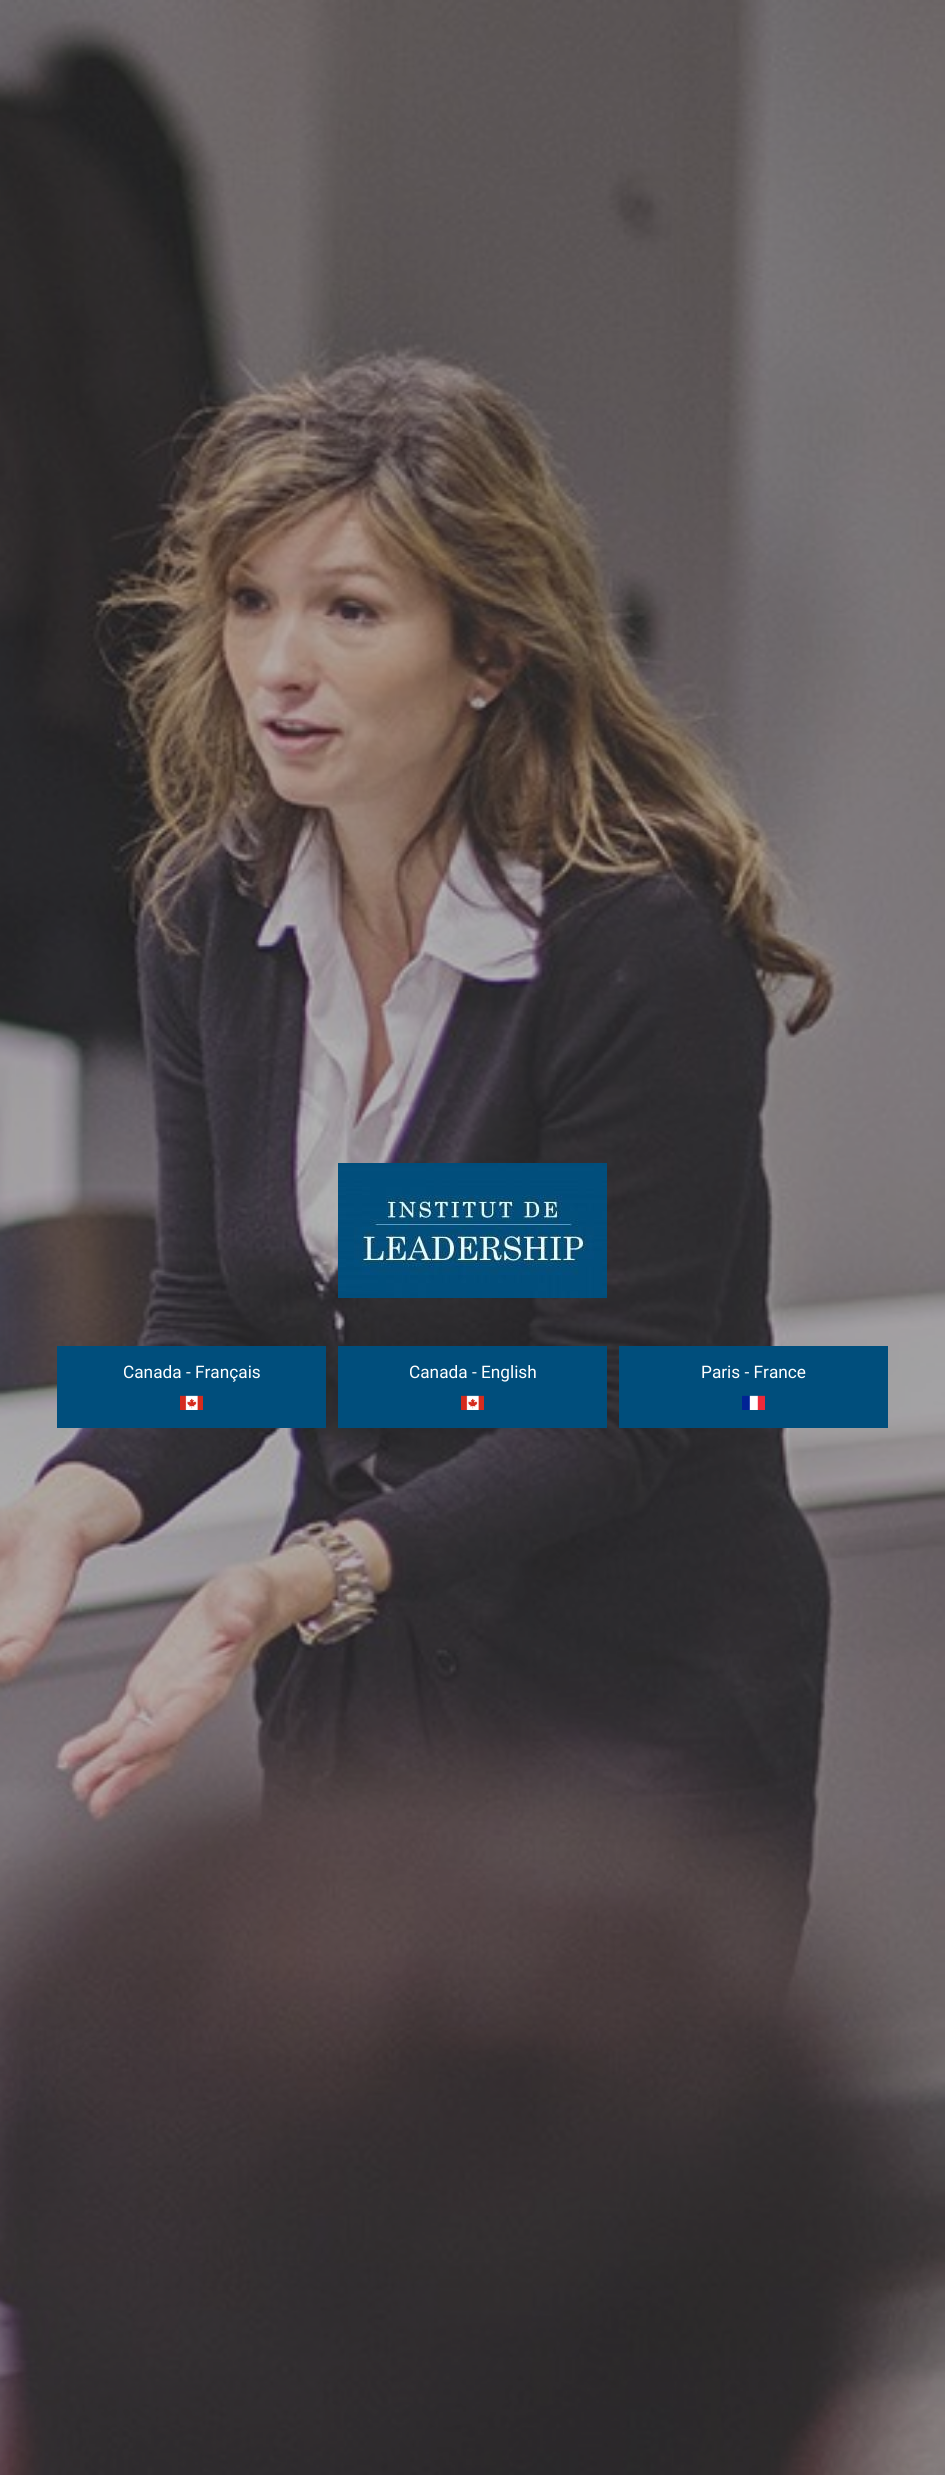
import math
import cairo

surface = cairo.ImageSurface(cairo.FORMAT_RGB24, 945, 2475)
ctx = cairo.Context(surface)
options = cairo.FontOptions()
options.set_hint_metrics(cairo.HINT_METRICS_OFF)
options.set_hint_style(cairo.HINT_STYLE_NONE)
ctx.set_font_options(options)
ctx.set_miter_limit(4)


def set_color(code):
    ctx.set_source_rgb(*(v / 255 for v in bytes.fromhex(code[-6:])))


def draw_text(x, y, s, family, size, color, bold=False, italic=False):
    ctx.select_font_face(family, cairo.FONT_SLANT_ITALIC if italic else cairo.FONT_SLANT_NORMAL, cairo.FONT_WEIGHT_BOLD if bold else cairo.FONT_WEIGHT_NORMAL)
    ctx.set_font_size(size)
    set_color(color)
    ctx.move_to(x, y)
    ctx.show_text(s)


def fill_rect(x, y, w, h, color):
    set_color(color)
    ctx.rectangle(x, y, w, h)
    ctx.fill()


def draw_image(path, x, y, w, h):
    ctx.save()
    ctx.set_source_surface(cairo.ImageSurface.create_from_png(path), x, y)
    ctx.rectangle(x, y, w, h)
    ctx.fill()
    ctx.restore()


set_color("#434343")
ctx.paint()
draw_image("assets/img1.png", 0, 0, 945, 2475)
draw_image("assets/img2.png", 338, 1163, 269, 135)
fill_rect(57, 1346, 269, 82, "#004e7c")
draw_text(123, 1378, "Canada - Français", "Roboto", 17.25, "#ffffff")
draw_image("assets/img3.png", 180, 1395, 23, 15)
fill_rect(338, 1346, 269, 82, "#004e7c")
draw_text(409, 1378, "Canada - English", "Roboto", 17.25, "#ffffff")
draw_image("assets/img3.png", 461, 1395, 23, 15)
fill_rect(619, 1346, 269, 82, "#004e7c")
draw_text(701, 1378, "Paris - France", "Roboto", 17.25, "#ffffff")
draw_image("assets/img4.png", 742, 1395, 23, 15)
surface.write_to_png("output.png")
